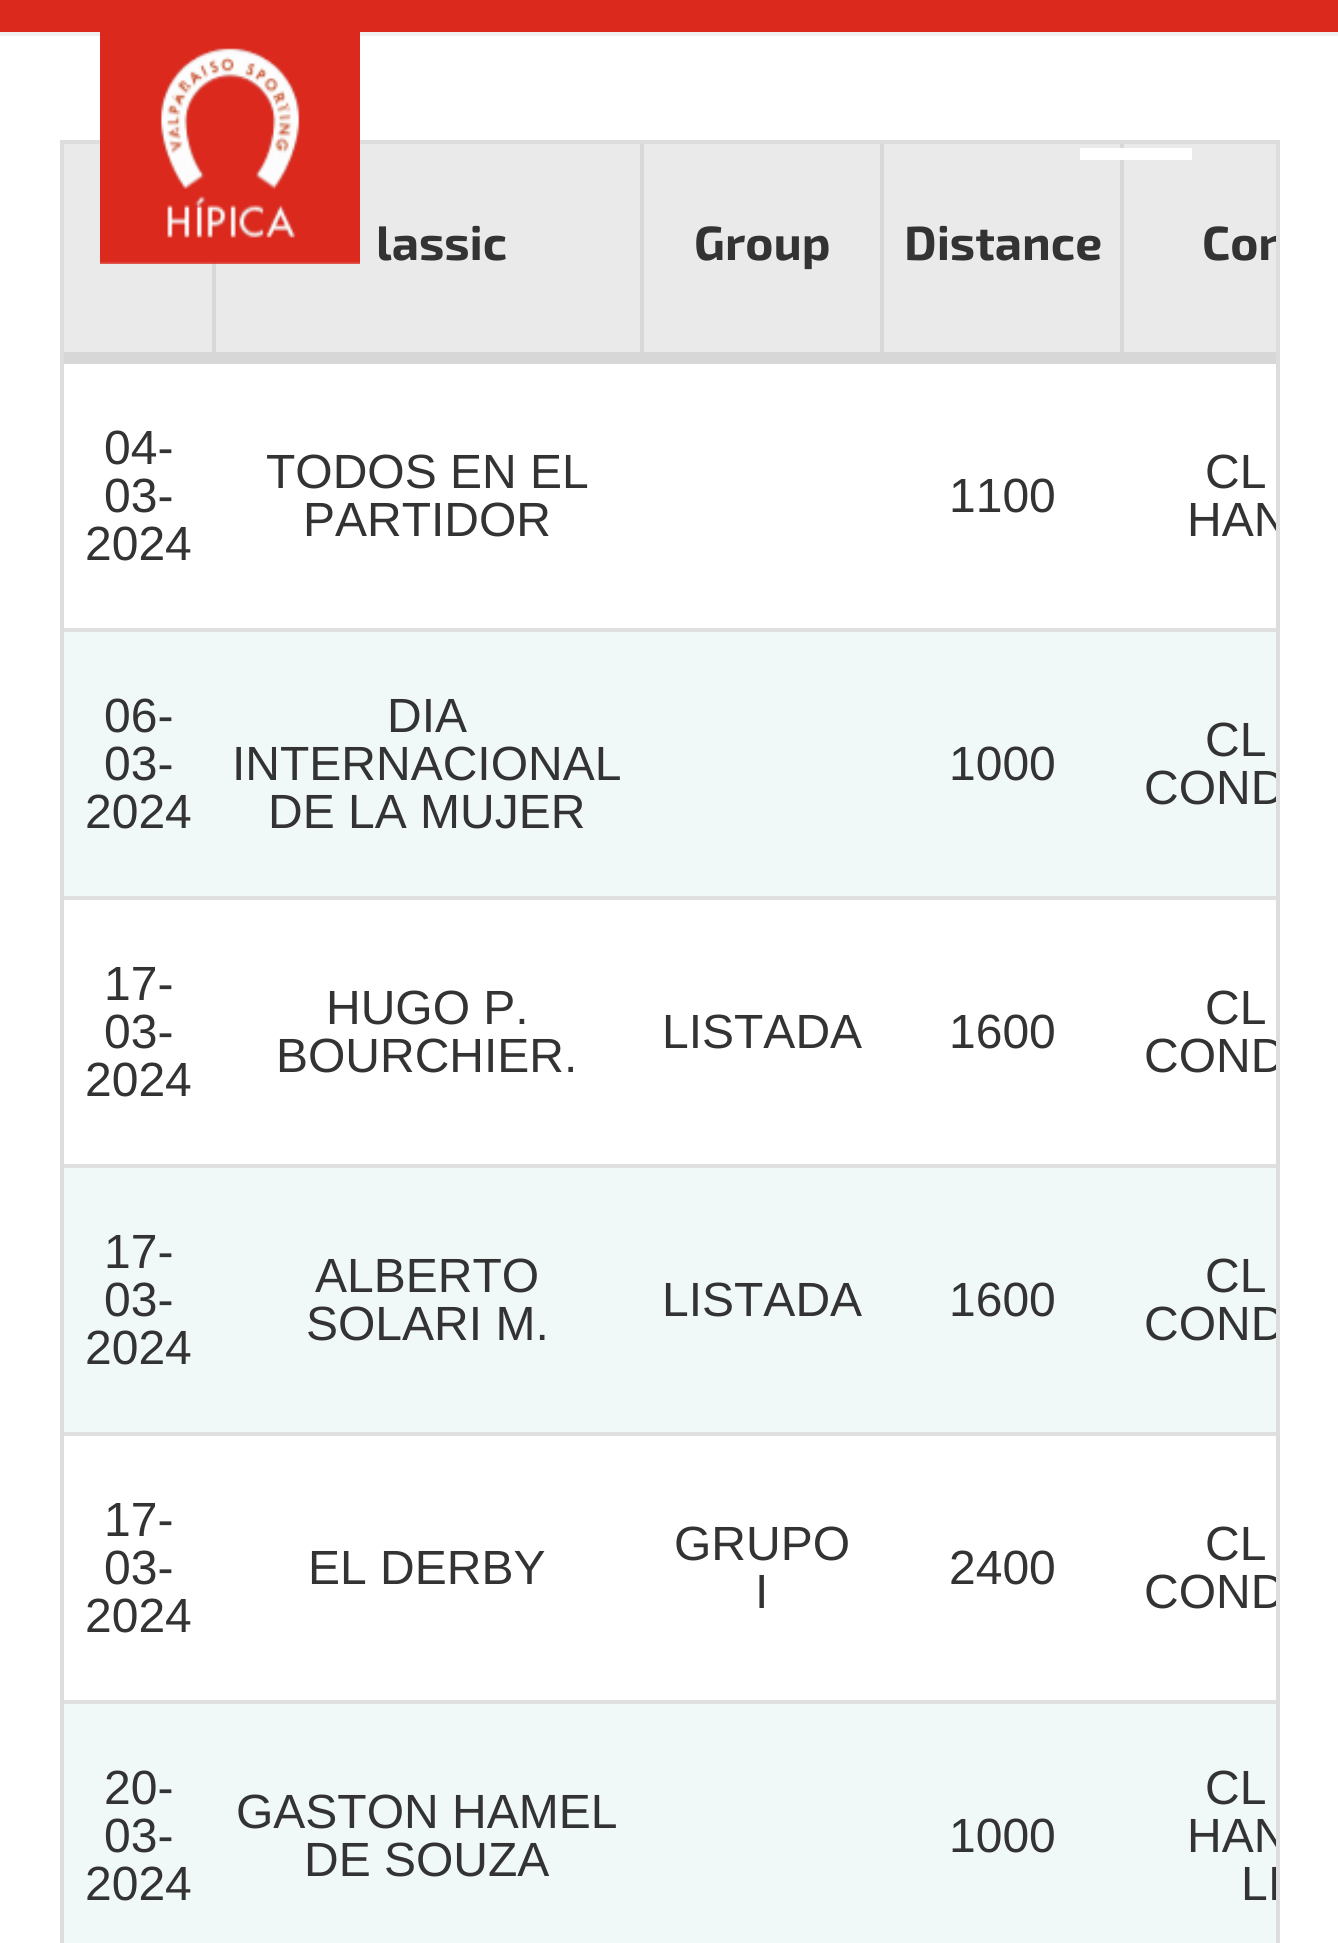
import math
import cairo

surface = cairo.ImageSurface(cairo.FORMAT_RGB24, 1338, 1943)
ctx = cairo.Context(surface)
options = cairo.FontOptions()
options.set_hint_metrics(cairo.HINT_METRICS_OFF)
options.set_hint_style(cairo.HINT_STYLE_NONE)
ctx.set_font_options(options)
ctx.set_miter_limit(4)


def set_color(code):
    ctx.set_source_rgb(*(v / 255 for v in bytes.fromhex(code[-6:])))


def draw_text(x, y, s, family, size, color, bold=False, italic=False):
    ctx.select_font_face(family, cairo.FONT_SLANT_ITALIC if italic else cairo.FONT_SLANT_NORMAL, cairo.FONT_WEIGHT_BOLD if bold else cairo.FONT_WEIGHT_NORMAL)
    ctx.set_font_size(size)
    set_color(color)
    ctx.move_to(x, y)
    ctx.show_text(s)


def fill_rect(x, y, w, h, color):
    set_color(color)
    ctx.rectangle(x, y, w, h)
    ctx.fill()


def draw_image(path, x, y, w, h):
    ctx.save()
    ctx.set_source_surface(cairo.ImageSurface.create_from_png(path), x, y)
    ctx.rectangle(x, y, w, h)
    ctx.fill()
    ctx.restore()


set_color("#ffffff")
ctx.paint()
fill_rect(0, 0, 1338, 32, "#dc291e")
fill_rect(0, 32, 1338, 4, "#f0f0f0")
ctx.rectangle(62, 142, 1216, 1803)
set_color("#dddddd")
ctx.set_line_width(4)
ctx.stroke()
fill_rect(64, 144, 148, 208, "#ebeaea")
fill_rect(212, 261, 4, 99, "#d9d7d7")
fill_rect(216, 144, 424, 208, "#ebeaea")
draw_image("assets/img1.png", 100, 32, 260, 232)
fill_rect(884, 144, 236, 208, "#ebeaea")
fill_rect(1120, 144, 4, 216, "#d9d7d7")
fill_rect(1124, 144, 152, 208, "#ebeaea")
fill_rect(1080, 148, 112, 12, "#ffffff")
fill_rect(640, 144, 4, 216, "#d9d7d7")
draw_text(376, 260, "lassic", "Exo 2", 48, "#333333", bold=True)
fill_rect(644, 144, 236, 208, "#ebeaea")
fill_rect(880, 144, 4, 216, "#d9d7d7")
draw_text(694, 260, "Group", "Exo 2", 48, "#333333", bold=True)
draw_text(904, 260, "Distance", "Exo 2", 48, "#333333", bold=True)
fill_rect(64, 352, 1212, 12, "#d7d7d7")
ctx.save()
ctx.rectangle(64, 144, 1212, 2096)
ctx.clip()
draw_text(1202, 260, "Con", "Exo 2", 48, "#333333", bold=True)
ctx.restore()
draw_text(104, 464, "04-", "Liberation Sans", 48, "#333333")
draw_text(104, 512, "03-", "Liberation Sans", 48, "#333333")
draw_text(85, 560, "2024", "Liberation Sans", 48, "#333333")
draw_text(266, 488, "TODOS EN EL", "Liberation Sans", 48, "#333333")
draw_text(303, 536, "PARTIDOR", "Liberation Sans", 48, "#333333")
draw_text(949, 512, "1100", "Liberation Sans", 48, "#333333")
fill_rect(64, 628, 1212, 4, "#e0e0e0")
draw_text(1205, 488, "CL", "Liberation Sans", 48, "#333333")
ctx.save()
ctx.rectangle(64, 144, 1212, 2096)
ctx.clip()
draw_text(1187, 536, "HAN", "Liberation Sans", 48, "#333333")
ctx.restore()
fill_rect(64, 632, 1212, 264, "#f1f9f8")
draw_text(104, 732, "06-", "Liberation Sans", 48, "#333333")
draw_text(104, 780, "03-", "Liberation Sans", 48, "#333333")
draw_text(85, 828, "2024", "Liberation Sans", 48, "#333333")
draw_text(387, 732, "DIA", "Liberation Sans", 48, "#333333")
draw_text(232, 780, "INTERNACIONAL", "Liberation Sans", 48, "#333333")
draw_text(268, 828, "DE LA MUJER", "Liberation Sans", 48, "#333333")
draw_text(949, 780, "1000", "Liberation Sans", 48, "#333333")
fill_rect(64, 896, 1212, 4, "#e0e0e0")
draw_text(1205, 756, "CL", "Liberation Sans", 48, "#333333")
ctx.save()
ctx.rectangle(64, 144, 1212, 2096)
ctx.clip()
draw_text(1144, 804, "COND", "Liberation Sans", 48, "#333333")
ctx.restore()
draw_text(104, 1000, "17-", "Liberation Sans", 48, "#333333")
draw_text(104, 1048, "03-", "Liberation Sans", 48, "#333333")
draw_text(85, 1096, "2024", "Liberation Sans", 48, "#333333")
draw_text(326, 1024, "HUGO P.", "Liberation Sans", 48, "#333333")
draw_text(276, 1072, "BOURCHIER.", "Liberation Sans", 48, "#333333")
draw_text(662, 1048, "LISTADA", "Liberation Sans", 48, "#333333")
draw_text(949, 1048, "1600", "Liberation Sans", 48, "#333333")
fill_rect(64, 1164, 1212, 4, "#e0e0e0")
draw_text(1205, 1024, "CL", "Liberation Sans", 48, "#333333")
ctx.save()
ctx.rectangle(64, 144, 1212, 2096)
ctx.clip()
draw_text(1144, 1072, "COND", "Liberation Sans", 48, "#333333")
ctx.restore()
fill_rect(64, 1168, 1212, 264, "#f1f9f8")
draw_text(104, 1268, "17-", "Liberation Sans", 48, "#333333")
draw_text(104, 1316, "03-", "Liberation Sans", 48, "#333333")
draw_text(85, 1364, "2024", "Liberation Sans", 48, "#333333")
draw_text(315, 1292, "ALBERTO", "Liberation Sans", 48, "#333333")
draw_text(306, 1340, "SOLARI M.", "Liberation Sans", 48, "#333333")
draw_text(662, 1316, "LISTADA", "Liberation Sans", 48, "#333333")
draw_text(949, 1316, "1600", "Liberation Sans", 48, "#333333")
fill_rect(64, 1432, 1212, 4, "#e0e0e0")
draw_text(1205, 1292, "CL", "Liberation Sans", 48, "#333333")
ctx.save()
ctx.rectangle(64, 144, 1212, 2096)
ctx.clip()
draw_text(1144, 1340, "COND", "Liberation Sans", 48, "#333333")
ctx.restore()
draw_text(104, 1536, "17-", "Liberation Sans", 48, "#333333")
draw_text(104, 1584, "03-", "Liberation Sans", 48, "#333333")
draw_text(85, 1632, "2024", "Liberation Sans", 48, "#333333")
draw_text(308, 1584, "EL DERBY", "Liberation Sans", 48, "#333333")
draw_text(674, 1560, "GRUPO", "Liberation Sans", 48, "#333333")
draw_text(755, 1608, "I", "Liberation Sans", 48, "#333333")
draw_text(949, 1584, "2400", "Liberation Sans", 48, "#333333")
fill_rect(64, 1700, 1212, 4, "#e0e0e0")
draw_text(1205, 1560, "CL", "Liberation Sans", 48, "#333333")
ctx.save()
ctx.rectangle(64, 144, 1212, 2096)
ctx.clip()
draw_text(1144, 1608, "COND", "Liberation Sans", 48, "#333333")
ctx.restore()
fill_rect(64, 1704, 1212, 239, "#f1f9f8")
draw_text(104, 1804, "20-", "Liberation Sans", 48, "#333333")
draw_text(104, 1852, "03-", "Liberation Sans", 48, "#333333")
draw_text(85, 1900, "2024", "Liberation Sans", 48, "#333333")
draw_text(236, 1828, "GASTON HAMEL", "Liberation Sans", 48, "#333333")
draw_text(304, 1876, "DE SOUZA", "Liberation Sans", 48, "#333333")
draw_text(949, 1852, "1000", "Liberation Sans", 48, "#333333")
draw_text(1205, 1804, "CL", "Liberation Sans", 48, "#333333")
ctx.save()
ctx.rectangle(64, 144, 1212, 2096)
ctx.clip()
draw_text(1187, 1852, "HAN", "Liberation Sans", 48, "#333333")
draw_text(1241, 1900, "LI", "Liberation Sans", 48, "#333333")
ctx.restore()
surface.write_to_png("output.png")
